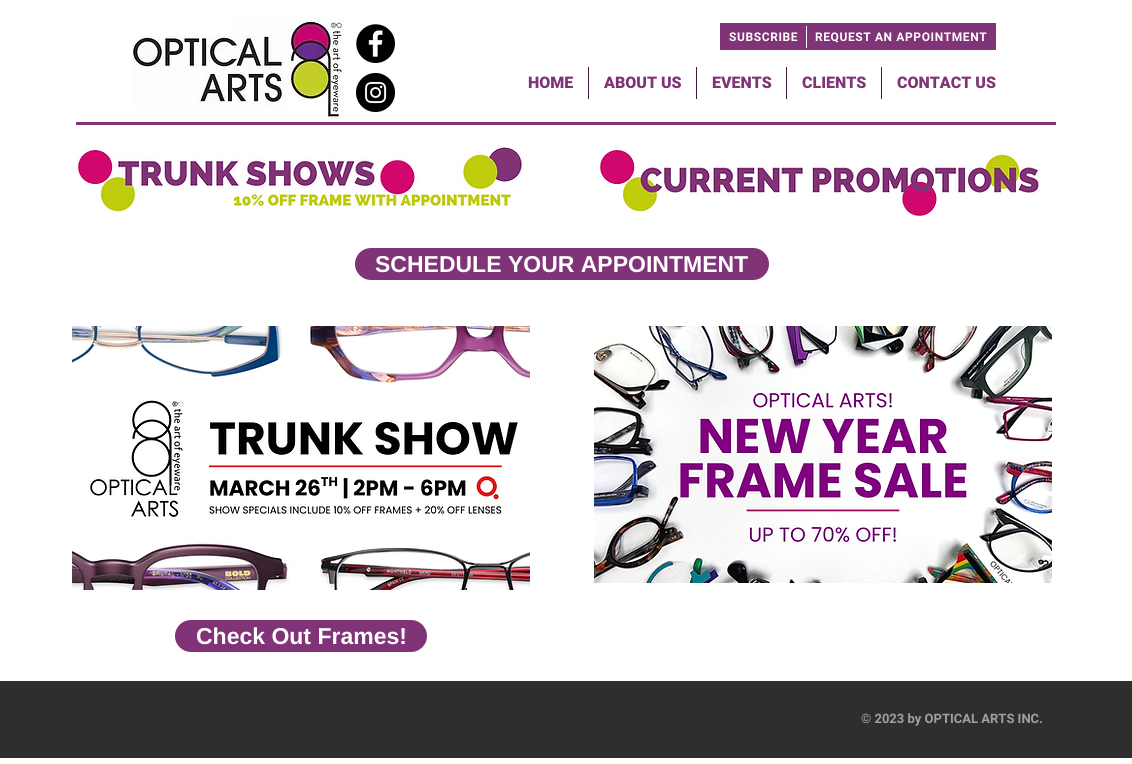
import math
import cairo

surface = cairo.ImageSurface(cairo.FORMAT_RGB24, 1132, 764)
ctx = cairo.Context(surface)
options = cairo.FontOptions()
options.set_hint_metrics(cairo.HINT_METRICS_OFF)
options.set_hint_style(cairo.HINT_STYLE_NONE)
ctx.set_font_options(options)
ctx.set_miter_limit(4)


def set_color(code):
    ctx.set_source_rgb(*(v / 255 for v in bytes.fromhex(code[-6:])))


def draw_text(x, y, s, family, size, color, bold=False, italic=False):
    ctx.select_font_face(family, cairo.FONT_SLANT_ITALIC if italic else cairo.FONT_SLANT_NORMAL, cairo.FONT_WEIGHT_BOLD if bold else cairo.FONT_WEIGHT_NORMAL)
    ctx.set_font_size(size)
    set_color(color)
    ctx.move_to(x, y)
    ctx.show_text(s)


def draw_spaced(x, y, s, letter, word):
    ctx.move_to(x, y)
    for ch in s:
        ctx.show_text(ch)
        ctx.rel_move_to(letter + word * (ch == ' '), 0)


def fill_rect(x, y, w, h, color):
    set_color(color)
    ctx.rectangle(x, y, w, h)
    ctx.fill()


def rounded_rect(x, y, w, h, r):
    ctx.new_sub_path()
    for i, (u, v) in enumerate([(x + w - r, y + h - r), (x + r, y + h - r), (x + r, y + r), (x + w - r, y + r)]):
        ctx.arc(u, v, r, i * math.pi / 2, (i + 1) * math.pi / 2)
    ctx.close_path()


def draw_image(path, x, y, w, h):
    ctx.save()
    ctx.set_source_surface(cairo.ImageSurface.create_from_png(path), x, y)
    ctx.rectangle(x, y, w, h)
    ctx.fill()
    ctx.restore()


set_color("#ffffff")
ctx.paint()
draw_image("assets/img1.png", 132, 18, 213, 101)
draw_image("assets/img2.png", 356, 24, 39, 39)
draw_image("assets/img3.png", 356, 73, 39, 39)
fill_rect(720, 23, 276, 27, "#803376")
ctx.select_font_face("Roboto", cairo.FONT_SLANT_NORMAL, cairo.FONT_WEIGHT_BOLD)
ctx.set_font_size(12)
set_color("#ffffff")
draw_spaced(729, 41, "SUBSCRIBE", 0.6, 0)
fill_rect(806, 26, 1, 22, "#ffffff")
draw_spaced(815, 41, "REQUEST AN APPOINTMENT", 0.6, 0)
draw_text(528, 88, "HOME", "Roboto Black", 16, "#803376")
fill_rect(588, 67, 1, 32, "#401a3b")
draw_text(604, 88, "ABOUT US", "Roboto Black", 16, "#803376")
fill_rect(696, 67, 1, 32, "#401a3b")
draw_text(712, 88, "EVENTS", "Roboto Black", 16, "#803376")
fill_rect(786, 67, 1, 32, "#401a3b")
draw_text(802, 88, "CLIENTS", "Roboto Black", 16, "#803376")
fill_rect(881, 67, 1, 32, "#401a3b")
draw_text(897, 88, "CONTACT US", "Roboto Black", 16, "#803376")
fill_rect(76, 122, 980, 3, "#803376")
draw_image("assets/img4.png", 76, 147, 448, 67)
draw_image("assets/img5.png", 599, 149, 442, 67)
rounded_rect(355, 248, 414, 32, 16)
ctx.fill()
draw_text(375, 272, "SCHEDULE YOUR APPOINTMENT", "Liberation Sans", 23, "#ffffff", bold=True)
draw_image("assets/img6.png", 72, 326, 458, 264)
draw_image("assets/img7.png", 594, 326, 458, 257)
set_color("#803376")
rounded_rect(175, 620, 252, 32, 16)
ctx.fill()
draw_text(196, 644, "Check Out Frames!", "Liberation Sans", 23, "#ffffff", bold=True)
fill_rect(0, 681, 1132, 77, "#2f2e2e")
draw_text(861, 723, "© 2023 by OPTICAL ARTS INC.", "Roboto", 13, "#a0a09f", bold=True)
surface.write_to_png("output.png")
